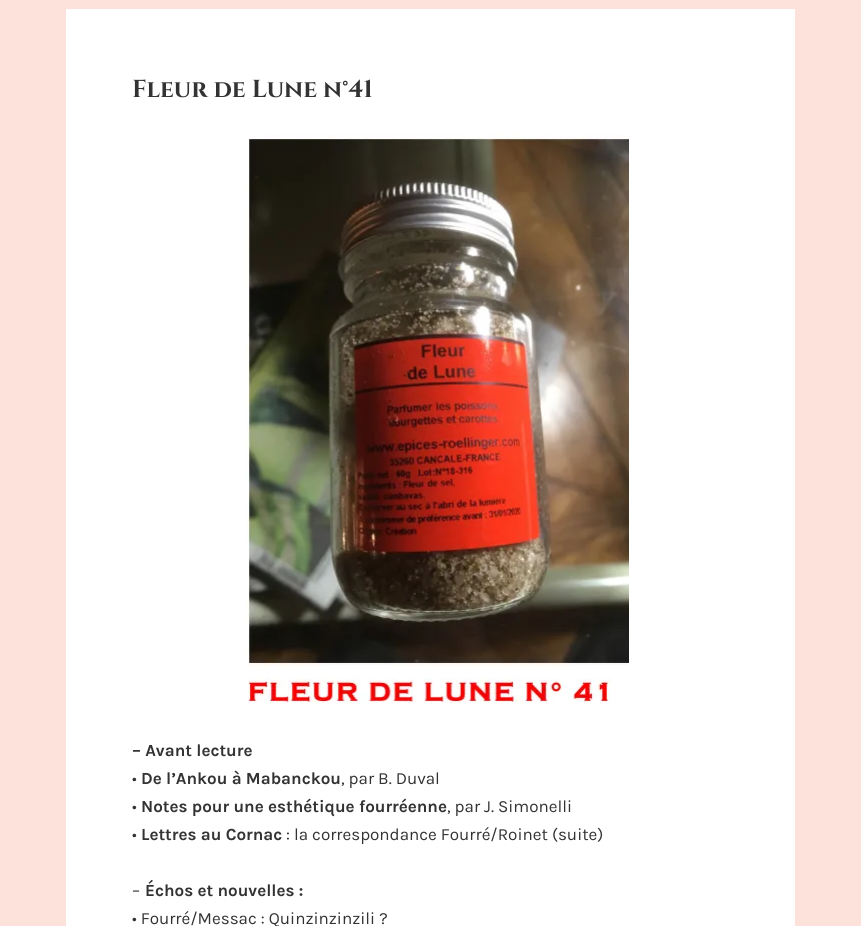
import math
import cairo

surface = cairo.ImageSurface(cairo.FORMAT_RGB24, 861, 926)
ctx = cairo.Context(surface)
options = cairo.FontOptions()
options.set_hint_metrics(cairo.HINT_METRICS_OFF)
options.set_hint_style(cairo.HINT_STYLE_NONE)
ctx.set_font_options(options)
ctx.set_miter_limit(4)


def set_color(code):
    ctx.set_source_rgb(*(v / 255 for v in bytes.fromhex(code[-6:])))


def draw_text(x, y, s, family, size, color, bold=False, italic=False):
    ctx.select_font_face(family, cairo.FONT_SLANT_ITALIC if italic else cairo.FONT_SLANT_NORMAL, cairo.FONT_WEIGHT_BOLD if bold else cairo.FONT_WEIGHT_NORMAL)
    ctx.set_font_size(size)
    set_color(color)
    ctx.move_to(x, y)
    ctx.show_text(s)


def fill_rect(x, y, w, h, color):
    set_color(color)
    ctx.rectangle(x, y, w, h)
    ctx.fill()


def draw_image(path, x, y, w, h):
    ctx.save()
    ctx.set_source_surface(cairo.ImageSurface.create_from_png(path), x, y)
    ctx.rectangle(x, y, w, h)
    ctx.fill()
    ctx.restore()


set_color("#fde2dc")
ctx.paint()
fill_rect(66, 9, 729, 917, "#ffffff")
draw_text(132, 97, "Fleur de Lune n°41", "Cinzel", 24.5, "#333333", bold=True)
draw_image("assets/img1.png", 246, 134, 383, 570)
draw_text(132, 756, "– Avant lecture", "Karla", 17, "#333333", bold=True)
draw_text(132, 784, "•", "Karla", 17, "#333333")
draw_text(141, 784, "De l’Ankou à Mabanckou", "Karla", 17, "#333333", bold=True)
draw_text(341, 784, ", par B. Duval", "Karla", 17, "#333333")
draw_text(132, 812, "•", "Karla", 17, "#333333")
draw_text(141, 812, "Notes pour une esthétique fourréenne", "Karla", 17, "#333333", bold=True)
draw_text(447, 812, ", par J. Simonelli", "Karla", 17, "#333333")
draw_text(132, 840, "•", "Karla", 17, "#333333")
draw_text(141, 840, "Lettres au Cornac", "Karla", 17, "#333333", bold=True)
draw_text(286, 840, ": la correspondance Fourré/Roinet (suite)", "Karla", 17, "#333333")
draw_text(132, 896, "–", "Karla", 17, "#333333")
draw_text(145, 896, "Échos et nouvelles :", "Karla", 17, "#333333", bold=True)
draw_text(132, 924, "• Fourré/Messac : Quinzinzinzili ?", "Karla", 17, "#333333")
surface.write_to_png("output.png")
